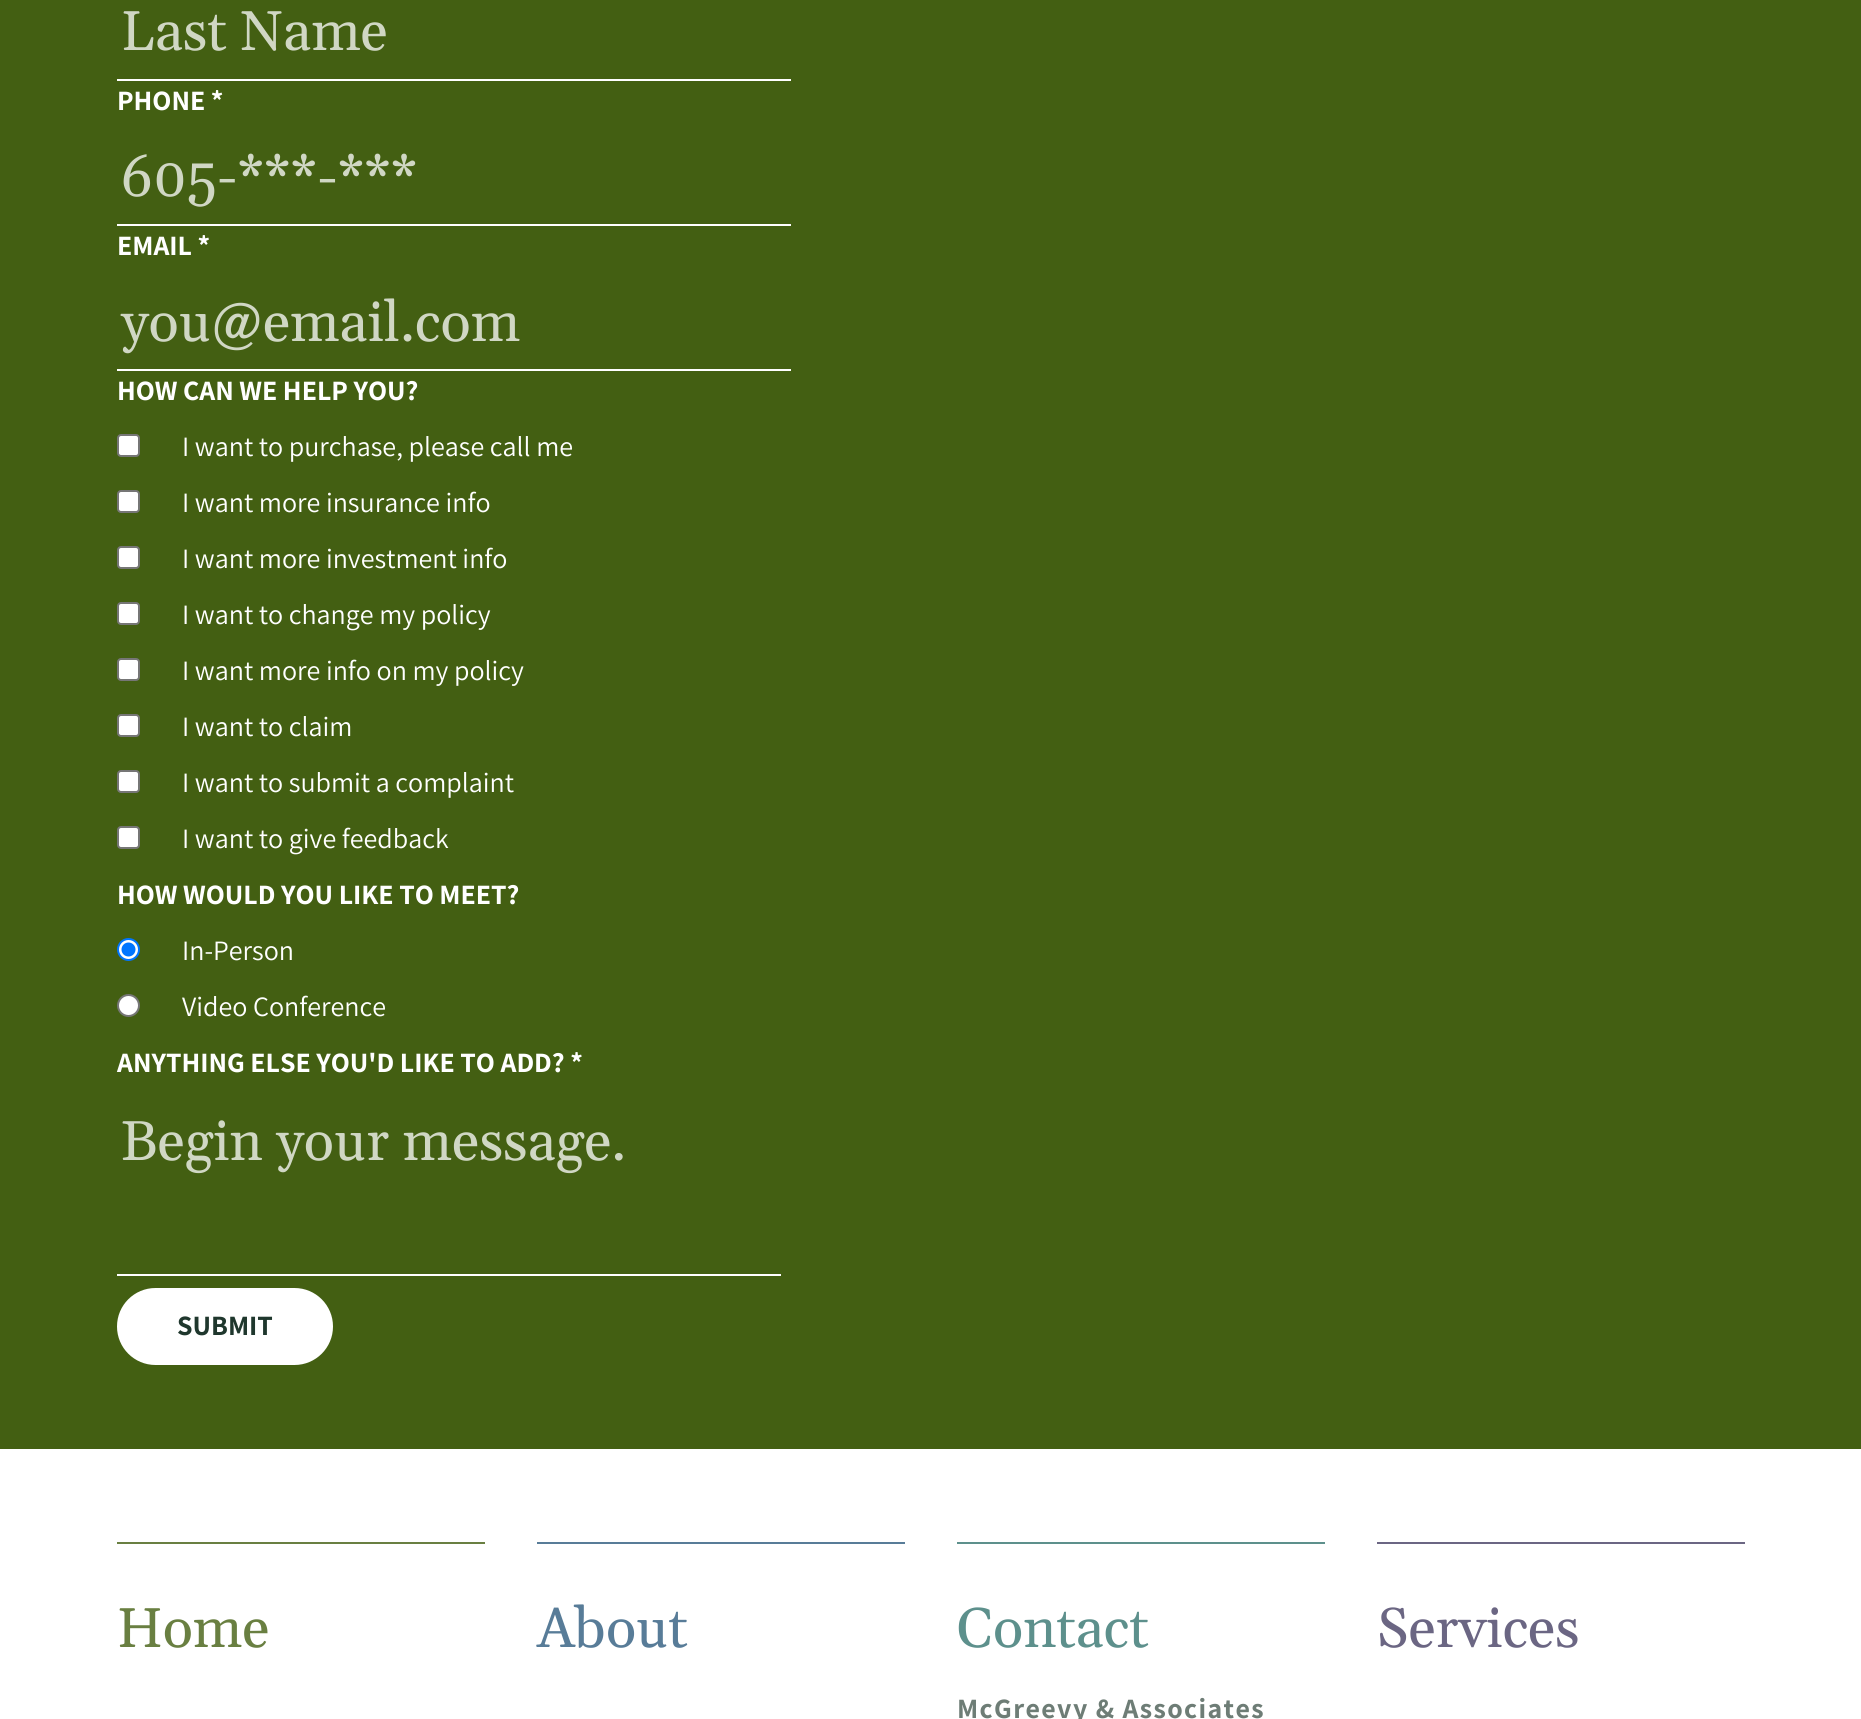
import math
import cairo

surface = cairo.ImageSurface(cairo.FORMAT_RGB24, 1861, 1719)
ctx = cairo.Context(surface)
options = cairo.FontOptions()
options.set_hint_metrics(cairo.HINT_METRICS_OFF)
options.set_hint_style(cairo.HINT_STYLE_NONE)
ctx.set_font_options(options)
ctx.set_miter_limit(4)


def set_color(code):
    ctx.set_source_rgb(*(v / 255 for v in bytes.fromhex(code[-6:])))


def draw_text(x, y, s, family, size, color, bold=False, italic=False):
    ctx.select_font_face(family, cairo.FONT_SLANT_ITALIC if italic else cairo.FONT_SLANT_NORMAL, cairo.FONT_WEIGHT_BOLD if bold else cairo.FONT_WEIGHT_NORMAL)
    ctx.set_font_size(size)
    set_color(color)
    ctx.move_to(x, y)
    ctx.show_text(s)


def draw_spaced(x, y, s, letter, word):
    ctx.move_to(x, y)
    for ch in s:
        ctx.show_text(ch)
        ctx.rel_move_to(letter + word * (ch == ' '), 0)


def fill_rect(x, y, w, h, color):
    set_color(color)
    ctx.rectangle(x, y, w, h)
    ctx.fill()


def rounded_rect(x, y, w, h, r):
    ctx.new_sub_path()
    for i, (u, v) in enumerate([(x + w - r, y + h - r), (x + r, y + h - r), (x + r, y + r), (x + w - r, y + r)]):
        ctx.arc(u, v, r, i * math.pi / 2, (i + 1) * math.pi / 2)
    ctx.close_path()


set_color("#ffffff")
ctx.paint()
fill_rect(0, 0, 1861, 1449, "#435f12")
fill_rect(117, 79, 674, 2, "#ffffff")
draw_text(121, 50, "Last Name", "Gelasio", 56, "#d0d7c4")
draw_text(117, 110, "PHONE *", "Assistant", 28, "#ffffff", bold=True)
fill_rect(117, 224, 674, 2, "#ffffff")
draw_text(121, 196, "605-***-***", "Gelasio", 56, "#d0d7c4")
draw_text(117, 255, "EMAIL *", "Assistant", 28, "#ffffff", bold=True)
fill_rect(117, 369, 674, 2, "#ffffff")
draw_text(121, 341, "you@email.com", "Gelasio", 56, "#d0d7c4")
draw_text(117, 400, "HOW CAN WE HELP YOU?", "Assistant", 28, "#ffffff", bold=True)
rounded_rect(118, 435, 21, 21, 3)
ctx.fill_preserve()
set_color("#767676")
ctx.stroke()
draw_text(182, 456, "I want to purchase, please call me", "Assistant", 28, "#ffffff")
rounded_rect(118, 491, 21, 21, 3)
ctx.fill_preserve()
set_color("#767676")
ctx.stroke()
draw_text(182, 512, "I want more insurance info", "Assistant", 28, "#ffffff")
rounded_rect(118, 547, 21, 21, 3)
ctx.fill_preserve()
set_color("#767676")
ctx.stroke()
draw_text(182, 568, "I want more investment info", "Assistant", 28, "#ffffff")
rounded_rect(118, 603, 21, 21, 3)
ctx.fill_preserve()
set_color("#767676")
ctx.stroke()
draw_text(182, 624, "I want to change my policy", "Assistant", 28, "#ffffff")
rounded_rect(118, 659, 21, 21, 3)
ctx.fill_preserve()
set_color("#767676")
ctx.stroke()
draw_text(182, 680, "I want more info on my policy", "Assistant", 28, "#ffffff")
rounded_rect(118, 715, 21, 21, 3)
ctx.fill_preserve()
set_color("#767676")
ctx.stroke()
draw_text(182, 736, "I want to claim", "Assistant", 28, "#ffffff")
rounded_rect(118, 771, 21, 21, 3)
ctx.fill_preserve()
set_color("#767676")
ctx.stroke()
draw_text(182, 792, "I want to submit a complaint", "Assistant", 28, "#ffffff")
rounded_rect(118, 827, 21, 21, 3)
ctx.fill_preserve()
set_color("#767676")
ctx.stroke()
draw_text(182, 848, "I want to give feedback", "Assistant", 28, "#ffffff")
draw_text(117, 904, "HOW WOULD YOU LIKE TO MEET?", "Assistant", 28, "#ffffff", bold=True)
ctx.new_path()
ctx.arc(128.5, 949.5, 10.5, 0, 2 * math.pi)
ctx.fill_preserve()
set_color("#0075ff")
ctx.stroke()
ctx.arc(128.5, 949.5, 7, 0, 2 * math.pi)
ctx.fill()
draw_text(182, 960, "In-Person", "Assistant", 28, "#ffffff")
ctx.new_path()
ctx.arc(128.5, 1005.5, 10.5, 0, 2 * math.pi)
ctx.fill_preserve()
set_color("#767676")
ctx.stroke()
draw_text(182, 1016, "Video Conference", "Assistant", 28, "#ffffff")
draw_text(117, 1072, "ANYTHING ELSE YOU'D LIKE TO ADD? *", "Assistant", 28, "#ffffff", bold=True)
fill_rect(117, 1274, 664, 2, "#ffffff")
draw_text(121, 1160, "Begin your message.", "Gelasio", 56, "#d0d7c4")
set_color("#ffffff")
rounded_rect(119, 1290, 212, 73, 36.5)
ctx.fill_preserve()
ctx.set_line_width(4)
ctx.stroke()
draw_text(177, 1335, "SUBMIT", "Assistant", 28, "#1f372d", bold=True)
fill_rect(117, 1542, 368, 2, "#697f41")
draw_text(117, 1647, "Home", "Gelasio", 56, "#697f41")
fill_rect(537, 1542, 368, 2, "#587c98")
draw_text(537, 1647, "About", "Gelasio", 56, "#587c98")
fill_rect(957, 1542, 368, 2, "#5d908c")
draw_text(957, 1647, "Contact", "Gelasio", 56, "#5d908c")
ctx.select_font_face("Assistant", cairo.FONT_SLANT_NORMAL, cairo.FONT_WEIGHT_BOLD)
ctx.set_font_size(28)
set_color("#6e7d76")
draw_spaced(957, 1718, "McGreevy & Associates", 1.4, 0)
fill_rect(1377, 1542, 368, 2, "#6b6683")
draw_text(1377, 1647, "Services", "Gelasio", 56, "#6b6683")
surface.write_to_png("output.png")
